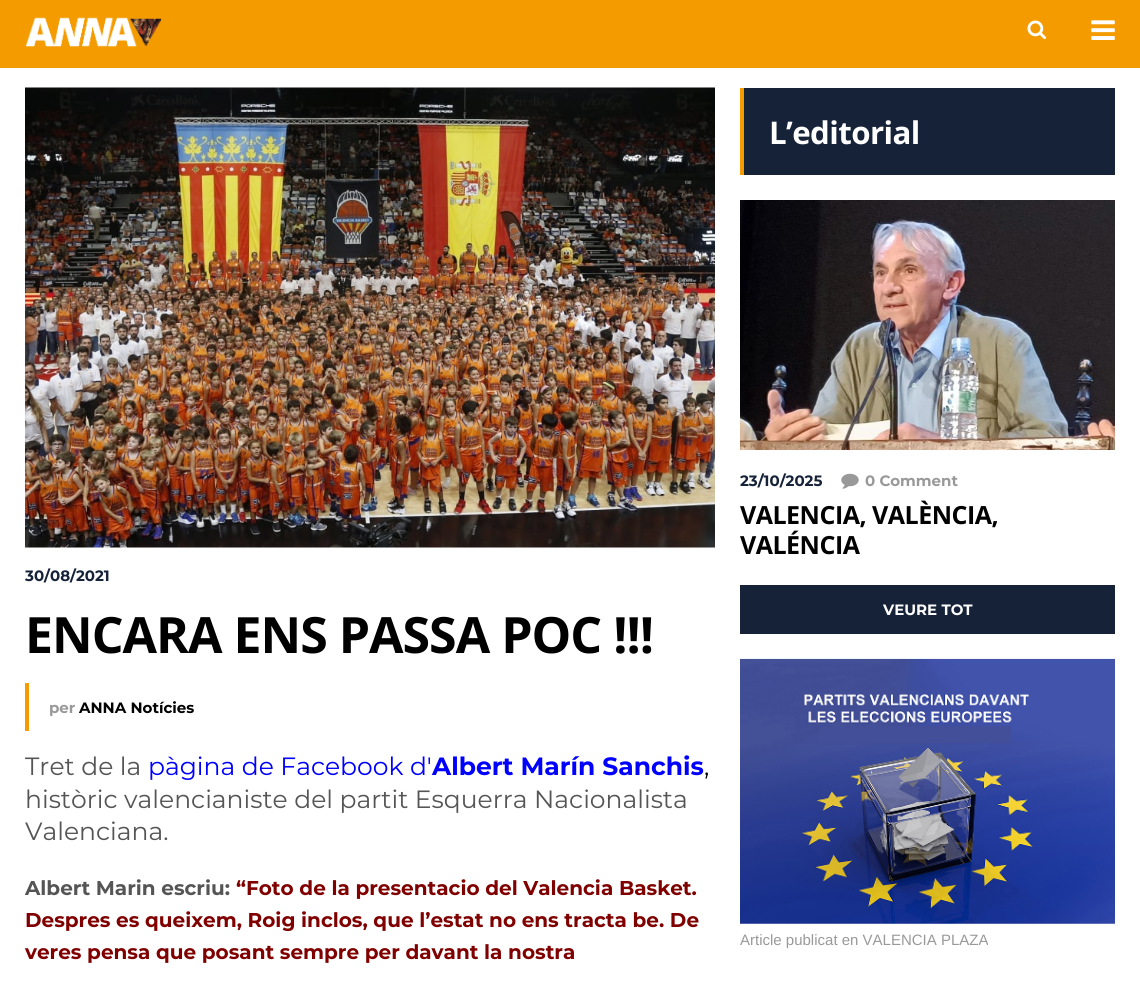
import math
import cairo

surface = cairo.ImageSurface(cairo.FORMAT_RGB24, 1140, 982)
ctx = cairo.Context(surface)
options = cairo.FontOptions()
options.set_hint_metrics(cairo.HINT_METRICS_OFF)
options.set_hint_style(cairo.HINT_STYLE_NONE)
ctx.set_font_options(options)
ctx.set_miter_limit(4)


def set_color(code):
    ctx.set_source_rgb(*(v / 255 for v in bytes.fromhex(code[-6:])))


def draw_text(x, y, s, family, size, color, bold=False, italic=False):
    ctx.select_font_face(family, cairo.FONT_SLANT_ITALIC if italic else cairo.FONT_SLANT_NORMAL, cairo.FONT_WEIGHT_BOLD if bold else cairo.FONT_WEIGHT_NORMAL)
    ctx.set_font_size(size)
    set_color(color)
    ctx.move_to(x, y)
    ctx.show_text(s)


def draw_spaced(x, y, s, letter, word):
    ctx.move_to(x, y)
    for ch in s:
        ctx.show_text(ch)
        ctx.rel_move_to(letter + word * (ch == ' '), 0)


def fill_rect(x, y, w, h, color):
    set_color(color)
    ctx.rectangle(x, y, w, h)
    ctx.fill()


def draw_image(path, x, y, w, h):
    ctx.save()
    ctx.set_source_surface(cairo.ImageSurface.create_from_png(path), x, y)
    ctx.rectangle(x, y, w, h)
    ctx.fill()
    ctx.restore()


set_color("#ffffff")
ctx.paint()
fill_rect(0, 0, 1140, 68, "#f49b00")
draw_image("assets/img1.png", 26, 17, 136, 30)
draw_image("assets/img2.png", 1027, 20, 20, 20)
draw_image("assets/img3.png", 1091, 20, 24, 20)
draw_image("assets/img4.png", 25, 87, 690, 461)
draw_text(25, 581, "30/08/2021", "Montserrat", 15, "#162238", bold=True)
ctx.select_font_face("Open Sans", cairo.FONT_SLANT_NORMAL, cairo.FONT_WEIGHT_BOLD)
ctx.set_font_size(50)
set_color("#000000")
draw_spaced(25, 653, "ENCARA ENS PASSA POC !!!", -1, 0)
fill_rect(25, 683, 4, 48, "#f49b00")
draw_text(49, 713, "per", "Montserrat", 15, "#999999", bold=True)
draw_text(79, 713, "ANNA Notícies", "Montserrat", 15, "#000000", bold=True)
draw_text(25, 775, "Tret de la", "Montserrat", 25, "#555555")
draw_text(148, 775, "pàgina de Facebook d'", "Montserrat", 25, "#0000ff")
draw_text(432, 775, "Albert Marín Sanchis", "Montserrat", 25, "#0000ff", bold=True)
draw_text(704, 775, ",", "Montserrat", 25, "#000000")
draw_text(25, 808, "històric valencianiste del partit Esquerra Nacionalista", "Montserrat", 25, "#555555")
draw_text(25, 840, "Valenciana.", "Montserrat", 25, "#555555")
draw_text(25, 895, "Albert Marin escriu:", "Montserrat", 20, "#555555", bold=True)
draw_text(236, 895, "“Foto de la presentacio del Valencia Basket.", "Montserrat", 20, "#800000", bold=True)
draw_text(25, 927, "Despres es queixem, Roig inclos, que l’estat no ens tracta be. De", "Montserrat", 20, "#800000", bold=True)
draw_text(25, 959, "veres pensa que posant sempre per davant la nostra", "Montserrat", 20, "#800000", bold=True)
fill_rect(744, 88, 371, 87, "#162238")
fill_rect(740, 88, 4, 87, "#f49b00")
ctx.select_font_face("Open Sans", cairo.FONT_SLANT_NORMAL, cairo.FONT_WEIGHT_BOLD)
ctx.set_font_size(31.25)
set_color("#ffffff")
draw_spaced(769, 144, "L’editorial", -0.6, 0)
draw_image("assets/img5.png", 740, 200, 375, 250)
draw_text(740, 486, "23/10/2025", "Montserrat", 15, "#162238", bold=True)
draw_image("assets/img6.png", 841, 473, 18, 16)
draw_text(865, 486, "0 Comment", "Montserrat", 15, "#999999", bold=True)
ctx.select_font_face("Open Sans", cairo.FONT_SLANT_NORMAL, cairo.FONT_WEIGHT_BOLD)
ctx.set_font_size(25)
set_color("#000000")
draw_spaced(740, 524, "VALENCIA, VALÈNCIA,", -0.5, 0)
draw_spaced(740, 554, "VALÉNCIA", -0.5, 0)
fill_rect(740, 585, 375, 49, "#162238")
draw_text(883, 615, "VEURE TOT", "Montserrat", 15, "#ffffff", bold=True)
draw_image("assets/img7.png", 740, 658, 375, 266)
draw_text(740, 945, "Article publicat en VALENCIA PLAZA", "Liberation Sans", 15, "#999999")
surface.write_to_png("output.png")
